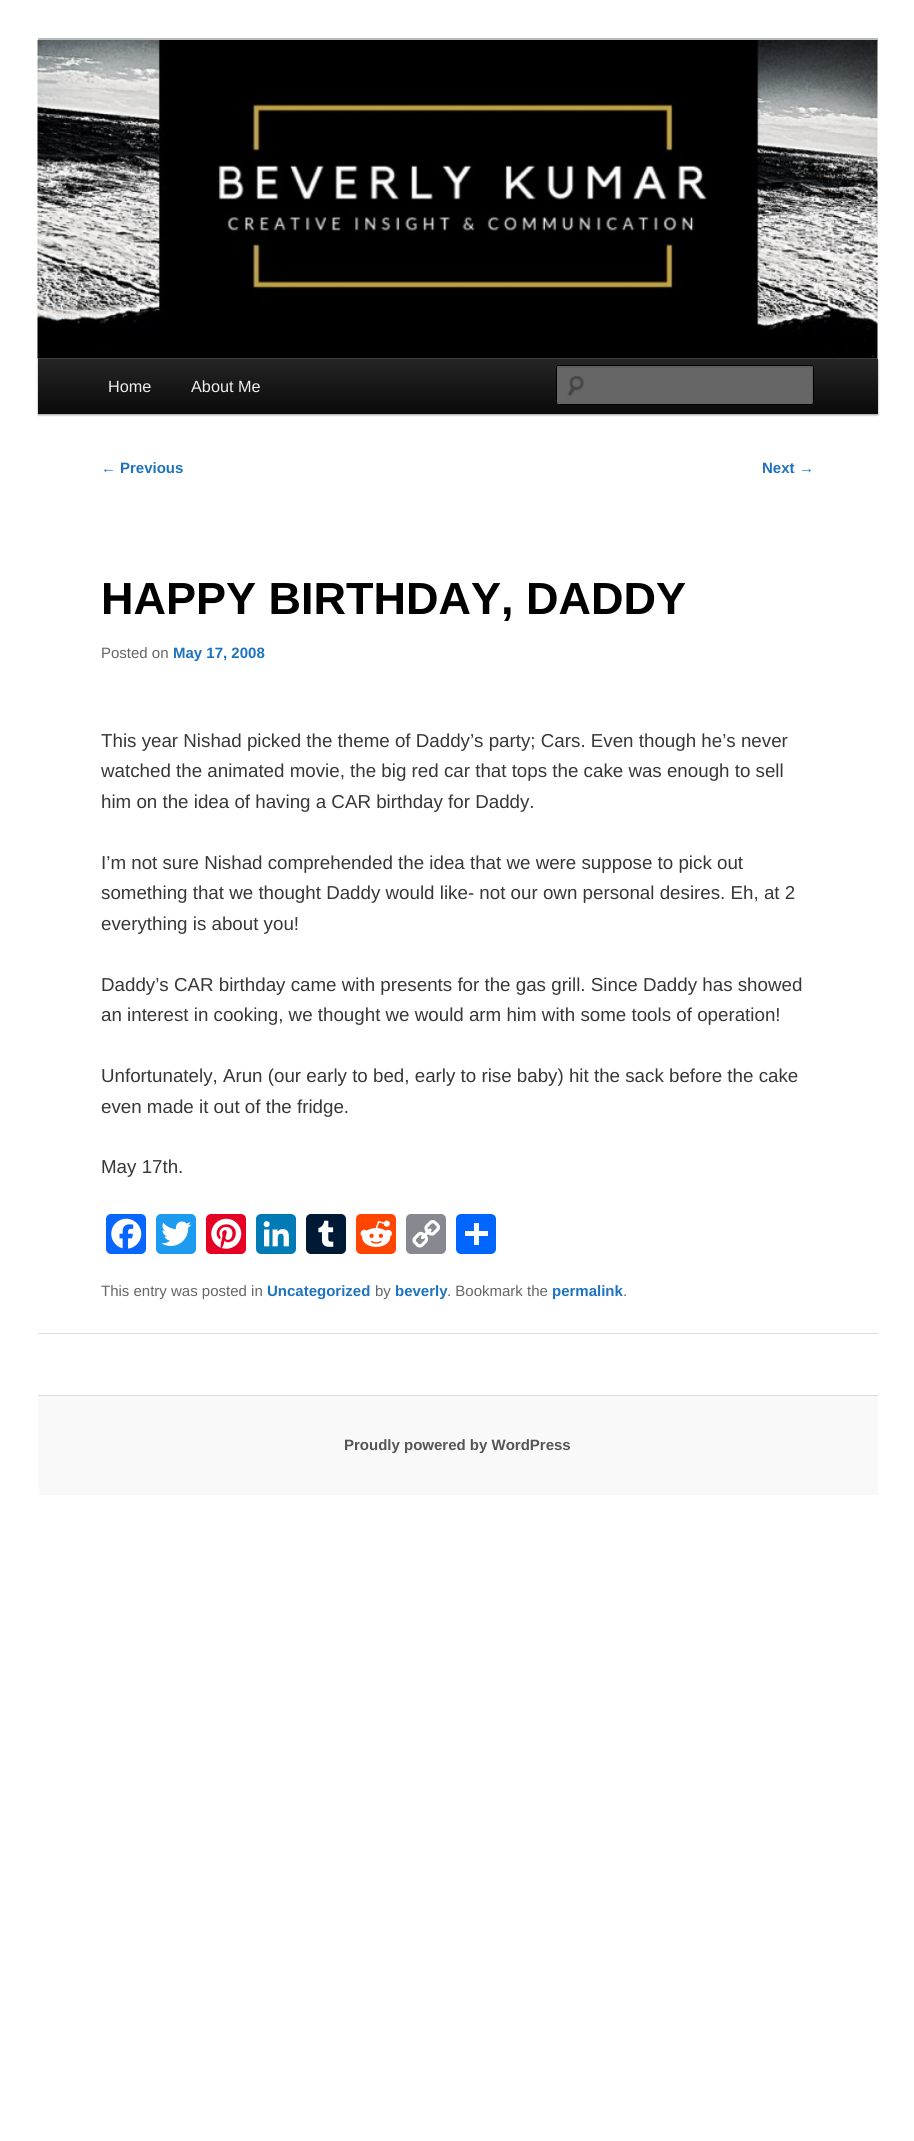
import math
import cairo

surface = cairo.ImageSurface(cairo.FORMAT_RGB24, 914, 2141)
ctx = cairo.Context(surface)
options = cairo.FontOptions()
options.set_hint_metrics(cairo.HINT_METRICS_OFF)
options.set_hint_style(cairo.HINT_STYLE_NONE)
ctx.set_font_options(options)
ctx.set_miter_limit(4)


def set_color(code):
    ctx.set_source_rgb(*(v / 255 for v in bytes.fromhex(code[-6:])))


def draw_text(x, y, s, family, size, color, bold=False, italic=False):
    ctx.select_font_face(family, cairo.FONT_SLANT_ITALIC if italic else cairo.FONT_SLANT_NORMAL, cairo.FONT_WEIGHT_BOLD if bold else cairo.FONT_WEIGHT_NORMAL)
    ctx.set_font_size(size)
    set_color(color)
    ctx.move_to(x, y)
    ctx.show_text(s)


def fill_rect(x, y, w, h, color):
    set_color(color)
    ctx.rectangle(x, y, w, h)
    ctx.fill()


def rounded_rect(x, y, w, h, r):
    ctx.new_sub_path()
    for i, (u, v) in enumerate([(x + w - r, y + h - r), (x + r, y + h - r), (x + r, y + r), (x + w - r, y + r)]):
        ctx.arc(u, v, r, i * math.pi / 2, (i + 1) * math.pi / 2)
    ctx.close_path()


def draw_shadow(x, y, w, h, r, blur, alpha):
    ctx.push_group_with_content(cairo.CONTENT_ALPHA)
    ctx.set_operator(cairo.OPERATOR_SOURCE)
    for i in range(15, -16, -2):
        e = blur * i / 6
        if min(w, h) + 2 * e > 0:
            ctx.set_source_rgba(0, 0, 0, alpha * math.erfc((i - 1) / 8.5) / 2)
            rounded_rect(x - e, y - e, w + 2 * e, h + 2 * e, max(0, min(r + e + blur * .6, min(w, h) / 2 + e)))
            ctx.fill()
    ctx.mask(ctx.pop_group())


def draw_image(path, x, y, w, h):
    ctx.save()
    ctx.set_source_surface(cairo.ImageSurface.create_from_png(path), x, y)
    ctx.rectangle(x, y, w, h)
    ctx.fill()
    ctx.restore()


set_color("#ffffff")
ctx.paint()
fill_rect(38, 38, 840, 3, "#bbbbbb")
set_color("#000000")
draw_shadow(38, 360, 840, 55, 0, 1, 0.4)
draw_image("assets/img1.png", 37, 40, 841, 319)
gradient = cairo.LinearGradient(458, 359, 458, 414)
gradient.add_color_stop_rgba(0, 0.145, 0.145, 0.145, 1)
gradient.add_color_stop_rgba(1, 0.039, 0.039, 0.039, 1)
ctx.set_source(gradient)
ctx.rectangle(38, 359, 840, 55)
ctx.fill()
draw_text(108, 392, "Home", "Liberation Sans", 16.25, "#eeeeee")
draw_text(191, 392, "About Me", "Liberation Sans", 16.25, "#eeeeee")
set_color("#666666")
rounded_rect(556, 365, 258, 40, 2.5)
ctx.fill()
draw_image("assets/img2.png", 567, 375, 17, 22)
set_color("#5c5c5c")
ctx.new_path()
ctx.move_to(559, 368)
ctx.line_to(811, 368)
ctx.curve_to(812, 368, 812, 368, 812, 369)
ctx.line_to(812, 404)
ctx.line_to(813, 403)
ctx.line_to(813, 367)
ctx.line_to(812, 366)
ctx.line_to(559, 366)
ctx.curve_to(558, 366, 558, 368, 558, 369)
ctx.curve_to(558, 368, 558, 368, 559, 368)
ctx.close_path()
ctx.fill()
rounded_rect(556.5, 365.5, 257, 39, 2)
set_color("#000000")
ctx.set_line_width(1)
ctx.stroke()
draw_text(101, 473, "←", "Liberation Sans", 15, "#1e73be")
draw_text(120, 473, "Previous", "Liberation Sans", 15, "#1e73be", bold=True)
draw_text(762, 473, "Next", "Liberation Sans", 15, "#1e73be", bold=True)
draw_text(799, 473, "→", "Liberation Sans", 15, "#1e73be")
draw_text(101, 614, "HAPPY BIRTHDAY, DADDY", "Liberation Sans", 45, "#000000", bold=True)
draw_text(101, 658, "Posted on", "Liberation Sans", 15, "#666666")
draw_text(173, 658, "May 17, 2008", "Liberation Sans", 15, "#1e73be", bold=True)
draw_text(101, 747, "This year Nishad picked the theme of Daddy’s party; Cars. Even though he’s never", "Liberation Sans", 18.75, "#373737")
draw_text(101, 777, "watched the animated movie, the big red car that tops the cake was enough to sell", "Liberation Sans", 18.75, "#373737")
draw_text(101, 808, "him on the idea of having a CAR birthday for Daddy.", "Liberation Sans", 18.75, "#373737")
draw_text(101, 869, "I’m not sure Nishad comprehended the idea that we were suppose to pick out", "Liberation Sans", 18.75, "#373737")
draw_text(101, 899, "something that we thought Daddy would like- not our own personal desires. Eh, at 2", "Liberation Sans", 18.75, "#373737")
draw_text(101, 930, "everything is about you!", "Liberation Sans", 18.75, "#373737")
draw_text(101, 991, "Daddy’s CAR birthday came with presents for the gas grill. Since Daddy has showed", "Liberation Sans", 18.75, "#373737")
draw_text(101, 1021, "an interest in cooking, we thought we would arm him with some tools of operation!", "Liberation Sans", 18.75, "#373737")
draw_text(101, 1082, "Unfortunately, Arun (our early to bed, early to rise baby) hit the sack before the cake", "Liberation Sans", 18.75, "#373737")
draw_text(101, 1113, "even made it out of the fridge.", "Liberation Sans", 18.75, "#373737")
draw_text(101, 1173, "May 17th.", "Liberation Sans", 18.75, "#373737")
set_color("#0866ff")
rounded_rect(106, 1214, 40, 40, 5)
ctx.fill()
draw_image("assets/img3.png", 111, 1218, 31, 31)
set_color("#1d9bf0")
rounded_rect(156, 1214, 40, 40, 5)
ctx.fill()
draw_image("assets/img4.png", 161, 1221, 31, 25)
set_color("#e60023")
rounded_rect(206, 1214, 40, 40, 5)
ctx.fill()
draw_image("assets/img5.png", 211, 1218, 31, 31)
set_color("#007bb5")
rounded_rect(256, 1214, 40, 40, 5)
ctx.fill()
draw_image("assets/img6.png", 263, 1221, 26, 26)
set_color("#001935")
rounded_rect(306, 1214, 40, 40, 5)
ctx.fill()
draw_image("assets/img7.png", 318, 1220, 16, 27)
set_color("#ff4500")
rounded_rect(356, 1214, 40, 40, 5)
ctx.fill()
draw_image("assets/img8.png", 360, 1220, 32, 27)
set_color("#888990")
rounded_rect(406, 1214, 40, 40, 5)
ctx.fill()
draw_image("assets/img9.png", 412, 1220, 28, 28)
set_color("#0166ff")
rounded_rect(456, 1214, 40, 40, 5)
ctx.fill()
fill_rect(474, 1223, 5, 22, "#ffffff")
fill_rect(465, 1231, 23, 5, "#ffffff")
draw_text(101, 1296, "This entry was posted in", "Liberation Sans", 15, "#666666")
draw_text(267, 1296, "Uncategorized", "Liberation Sans", 15, "#1e73be", bold=True)
draw_text(375, 1296, "by", "Liberation Sans", 15, "#666666")
draw_text(395, 1296, "beverly", "Liberation Sans", 15, "#1e73be", bold=True)
draw_text(447, 1296, ". Bookmark the", "Liberation Sans", 15, "#666666")
draw_text(552, 1296, "permalink", "Liberation Sans", 15, "#1e73be", bold=True)
draw_text(623, 1296, ".", "Liberation Sans", 15, "#666666")
fill_rect(38, 1333, 840, 1, "#dddddd")
fill_rect(38, 1396, 840, 99, "#f9f9f9")
fill_rect(38, 1395, 840, 1, "#dddddd")
draw_text(344, 1450, "Proudly powered by WordPress", "Liberation Sans", 15, "#555555", bold=True)
surface.write_to_png("output.png")
